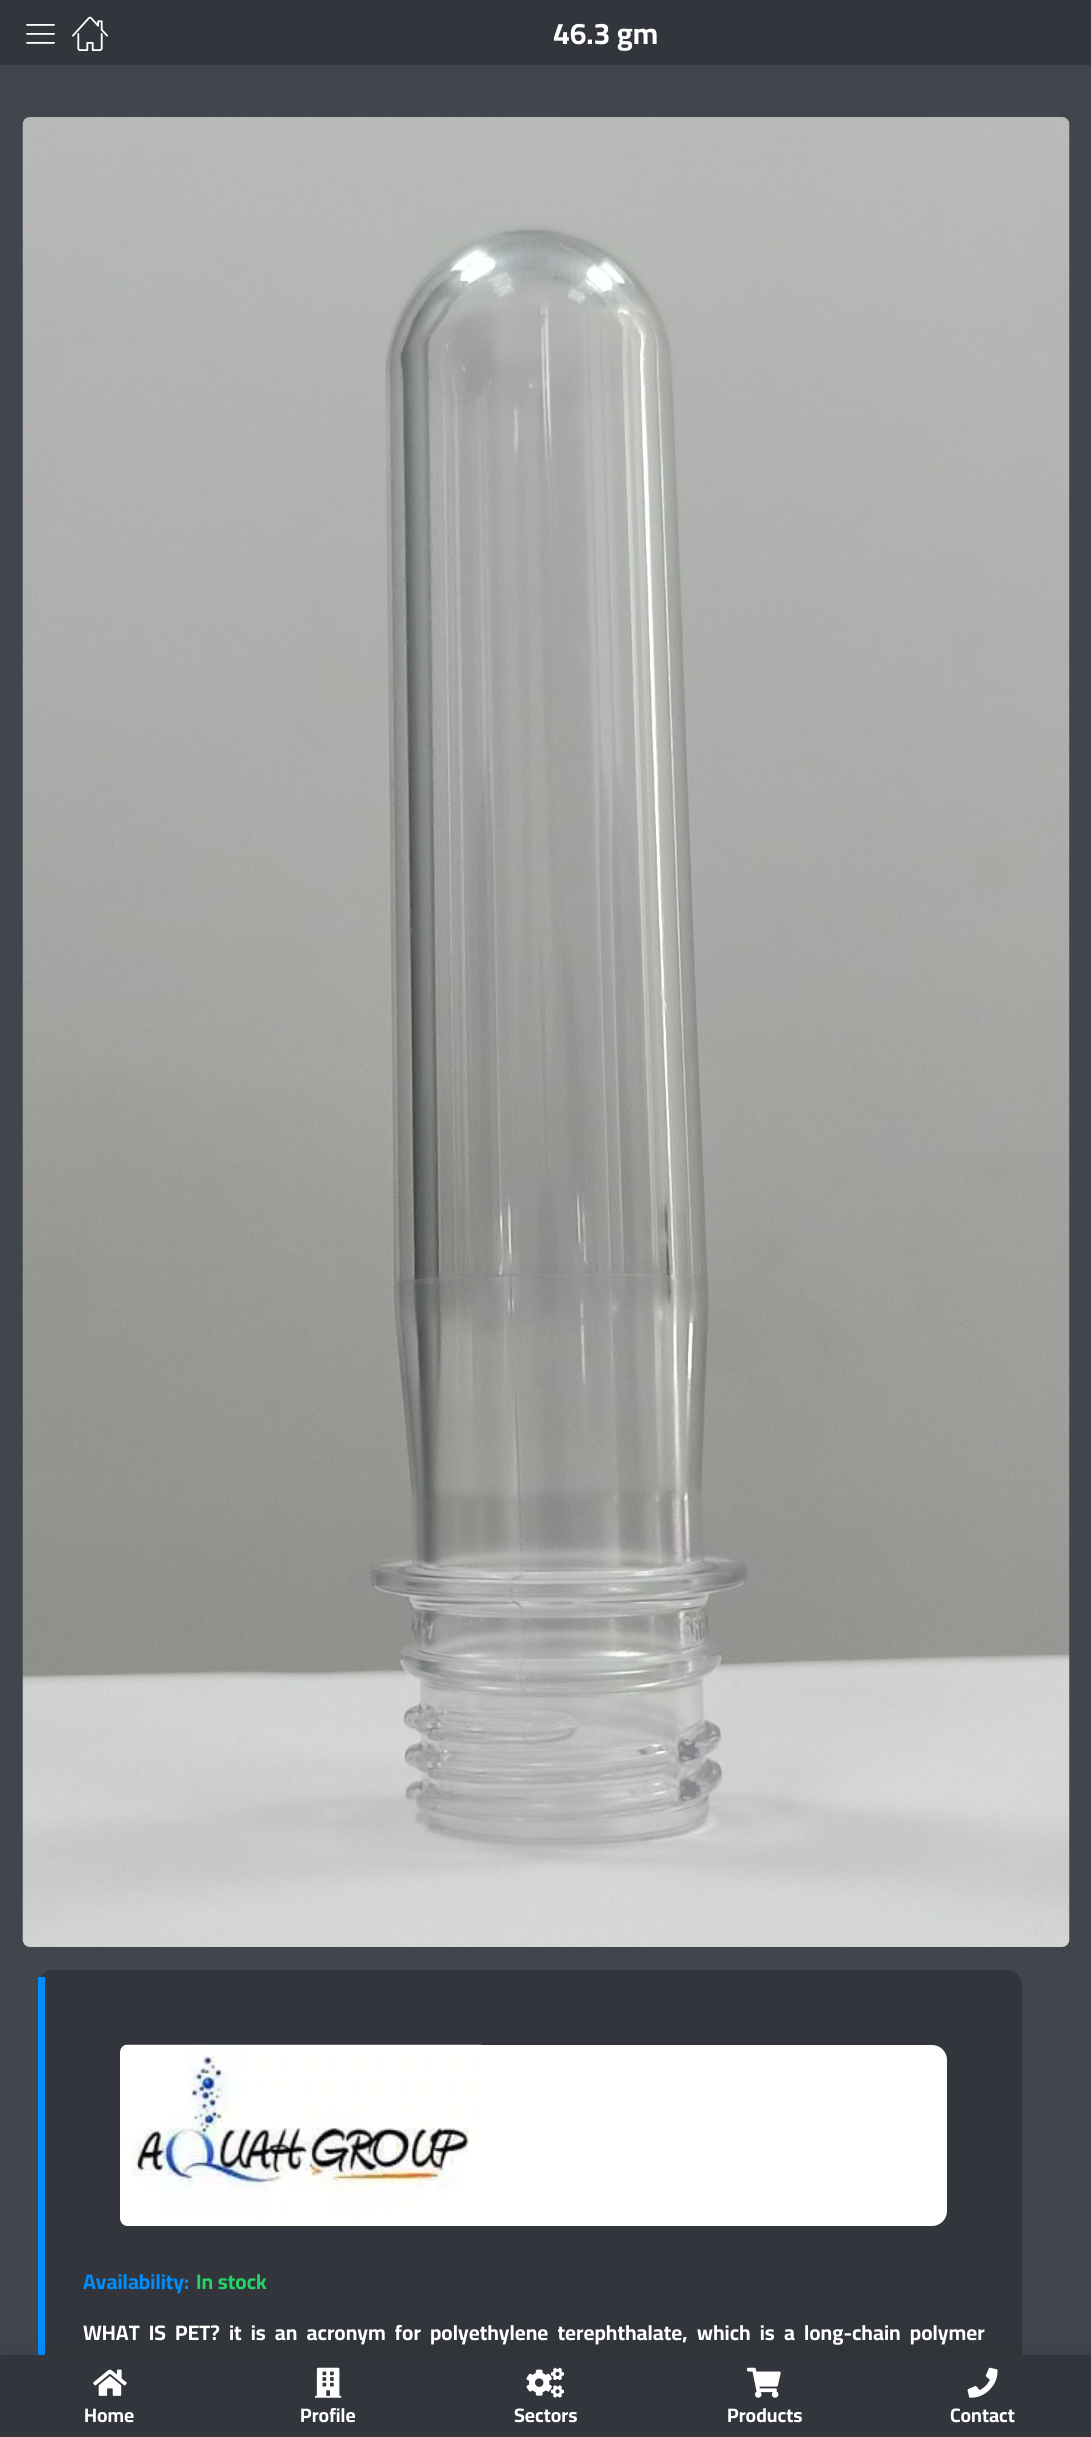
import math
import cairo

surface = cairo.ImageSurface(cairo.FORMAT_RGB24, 1091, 2437)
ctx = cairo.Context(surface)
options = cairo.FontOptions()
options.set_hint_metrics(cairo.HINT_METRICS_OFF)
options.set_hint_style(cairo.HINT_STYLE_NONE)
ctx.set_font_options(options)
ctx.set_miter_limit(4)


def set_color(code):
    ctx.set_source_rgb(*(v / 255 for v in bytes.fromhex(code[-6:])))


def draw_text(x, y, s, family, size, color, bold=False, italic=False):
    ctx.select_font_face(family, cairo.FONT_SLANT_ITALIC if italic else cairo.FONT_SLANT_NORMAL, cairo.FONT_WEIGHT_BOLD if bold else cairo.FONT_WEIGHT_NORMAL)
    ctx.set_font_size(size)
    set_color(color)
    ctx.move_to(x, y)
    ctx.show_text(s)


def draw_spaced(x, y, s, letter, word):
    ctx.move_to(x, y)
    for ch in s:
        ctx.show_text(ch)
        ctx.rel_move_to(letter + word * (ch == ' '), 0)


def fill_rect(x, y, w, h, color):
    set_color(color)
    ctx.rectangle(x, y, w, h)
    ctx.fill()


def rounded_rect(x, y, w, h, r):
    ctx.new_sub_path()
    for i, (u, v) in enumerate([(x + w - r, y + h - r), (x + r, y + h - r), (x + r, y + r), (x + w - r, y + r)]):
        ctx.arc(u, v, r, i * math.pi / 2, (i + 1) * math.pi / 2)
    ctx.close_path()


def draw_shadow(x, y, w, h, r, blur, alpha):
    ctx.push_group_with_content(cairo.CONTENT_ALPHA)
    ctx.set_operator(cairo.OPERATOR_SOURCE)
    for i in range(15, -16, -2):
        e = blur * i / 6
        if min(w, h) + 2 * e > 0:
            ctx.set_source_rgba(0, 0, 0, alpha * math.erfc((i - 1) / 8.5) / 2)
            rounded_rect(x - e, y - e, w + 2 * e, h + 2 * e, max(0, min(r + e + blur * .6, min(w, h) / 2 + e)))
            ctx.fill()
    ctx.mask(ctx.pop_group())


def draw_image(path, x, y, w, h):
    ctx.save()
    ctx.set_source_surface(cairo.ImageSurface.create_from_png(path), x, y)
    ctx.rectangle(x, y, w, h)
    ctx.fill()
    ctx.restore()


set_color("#41464d")
ctx.paint()
fill_rect(0, 0, 1091, 65, "#32363c")
draw_image("assets/img1.png", 26, 24, 29, 20)
draw_image("assets/img2.png", 72, 16, 36, 35)
draw_text(553, 44, "46.3 gm", "Cairo", 30, "#ffffff", bold=True)
draw_image("assets/img3.png", 22, 117, 1048, 1830)
set_color("#32363c")
rounded_rect(38, 1970, 984, 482, 15)
ctx.fill()
fill_rect(38, 1977, 7, 378, "#008dff")
set_color("#ffffff")
rounded_rect(120, 2045, 827, 181, 15)
ctx.fill()
draw_image("assets/img4.png", 120, 2044, 363, 182)
draw_text(83, 2289, "Availability:", "Cairo", 21, "#008dff", bold=True)
draw_text(196, 2289, "In stock", "Cairo", 21, "#25d366", bold=True)
set_color("#ffffff")
draw_spaced(83, 2340, "WHAT IS PET? it is an acronym for polyethylene terephthalate, which is a long-chain polymer", 0, 4.5)
fill_rect(0, 2355, 1091, 82, "#32363c")
ctx.save()
ctx.rectangle(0, 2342, 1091, 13)
ctx.clip()
set_color("#000000")
draw_shadow(0, 2355, 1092, 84, 0, 15, 0.1)
ctx.restore()
draw_image("assets/img5.png", 93, 2369, 34, 27)
draw_text(84, 2422, "Home", "Cairo", 19.5, "#ffffff", bold=True)
draw_image("assets/img6.png", 315, 2367, 27, 31)
draw_text(300, 2422, "Profile", "Cairo", 19.5, "#ffffff", bold=True)
draw_image("assets/img7.png", 526, 2367, 39, 31)
draw_text(514, 2422, "Sectors", "Cairo", 19.5, "#ffffff", bold=True)
draw_image("assets/img8.png", 747, 2367, 34, 31)
draw_text(727, 2422, "Products", "Cairo", 19.5, "#ffffff", bold=True)
draw_image("assets/img9.png", 967, 2367, 31, 31)
draw_text(950, 2422, "Contact", "Cairo", 19.5, "#ffffff", bold=True)
surface.write_to_png("output.png")
